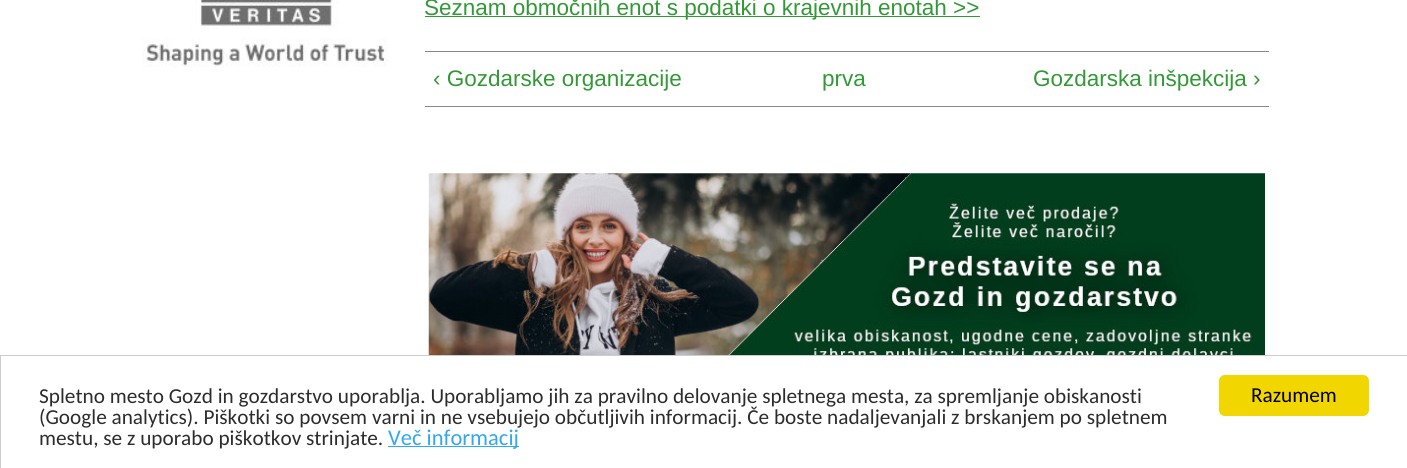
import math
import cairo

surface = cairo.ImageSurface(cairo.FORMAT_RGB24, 1407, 468)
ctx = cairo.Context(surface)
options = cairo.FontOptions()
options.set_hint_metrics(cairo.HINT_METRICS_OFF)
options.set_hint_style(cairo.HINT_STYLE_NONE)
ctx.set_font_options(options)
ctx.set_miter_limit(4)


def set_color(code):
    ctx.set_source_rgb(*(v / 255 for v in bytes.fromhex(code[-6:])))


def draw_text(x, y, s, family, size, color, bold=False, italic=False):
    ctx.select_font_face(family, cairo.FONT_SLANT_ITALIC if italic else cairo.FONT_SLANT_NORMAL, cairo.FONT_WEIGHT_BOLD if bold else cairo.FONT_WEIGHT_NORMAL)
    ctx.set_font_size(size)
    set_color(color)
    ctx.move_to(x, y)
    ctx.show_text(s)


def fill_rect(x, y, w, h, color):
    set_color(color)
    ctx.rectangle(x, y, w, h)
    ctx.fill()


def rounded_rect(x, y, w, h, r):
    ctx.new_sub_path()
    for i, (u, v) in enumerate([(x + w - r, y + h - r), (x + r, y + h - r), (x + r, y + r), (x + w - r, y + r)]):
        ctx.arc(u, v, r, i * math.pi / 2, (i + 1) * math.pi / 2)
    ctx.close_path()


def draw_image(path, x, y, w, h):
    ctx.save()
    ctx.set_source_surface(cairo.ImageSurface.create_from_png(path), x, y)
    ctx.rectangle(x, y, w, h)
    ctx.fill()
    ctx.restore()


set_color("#ffffff")
ctx.paint()
draw_image("assets/img1.png", 142, 0, 246, 67)
fill_rect(425, 16, 555, 1, "#339937")
draw_text(424, 15, "Seznam območnih enot s podatki o krajevnih enotah >>", "Liberation Sans", 22.5, "#339937")
fill_rect(425, 51, 844, 1, "#888888")
fill_rect(425, 106, 844, 1, "#888888")
draw_text(433, 86, "‹ Gozdarske organizacije", "Liberation Sans", 22.5, "#339937")
draw_text(822, 86, "prva", "Liberation Sans", 22.5, "#339937")
draw_text(1033, 86, "Gozdarska inšpekcija ›", "Liberation Sans", 22.5, "#339937")
draw_image("assets/img2.png", 428, 173, 837, 182)
ctx.rectangle(0.5, 355.5, 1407, 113)
set_color("#cccccc")
ctx.set_line_width(1)
ctx.stroke()
draw_text(39, 403, "Spletno mesto Gozd in gozdarstvo uporablja. Uporabljamo jih za pravilno delovanje spletnega mesta, za spremljanje obiskanosti", "Carlito", 21.25, "#2c2c2c")
draw_text(39, 424, "(Google analytics). Piškotki so povsem varni in ne vsebujejo občutljivih informacij. Če boste nadaljevanjali z brskanjem po spletnem", "Carlito", 21.25, "#2c2c2c")
draw_text(39, 445, "mestu, se z uporabo piškotkov strinjate.", "Carlito", 21.25, "#2c2c2c")
fill_rect(388, 446, 131, 1, "#31a8f0")
draw_text(388, 445, "Več informacij", "Carlito", 22.5, "#31a8f0")
set_color("#f1d600")
rounded_rect(1219, 375, 150, 41, 6)
ctx.fill()
draw_text(1251, 402, "Razumem", "Carlito", 21.25, "#000000")
surface.write_to_png("output.png")
